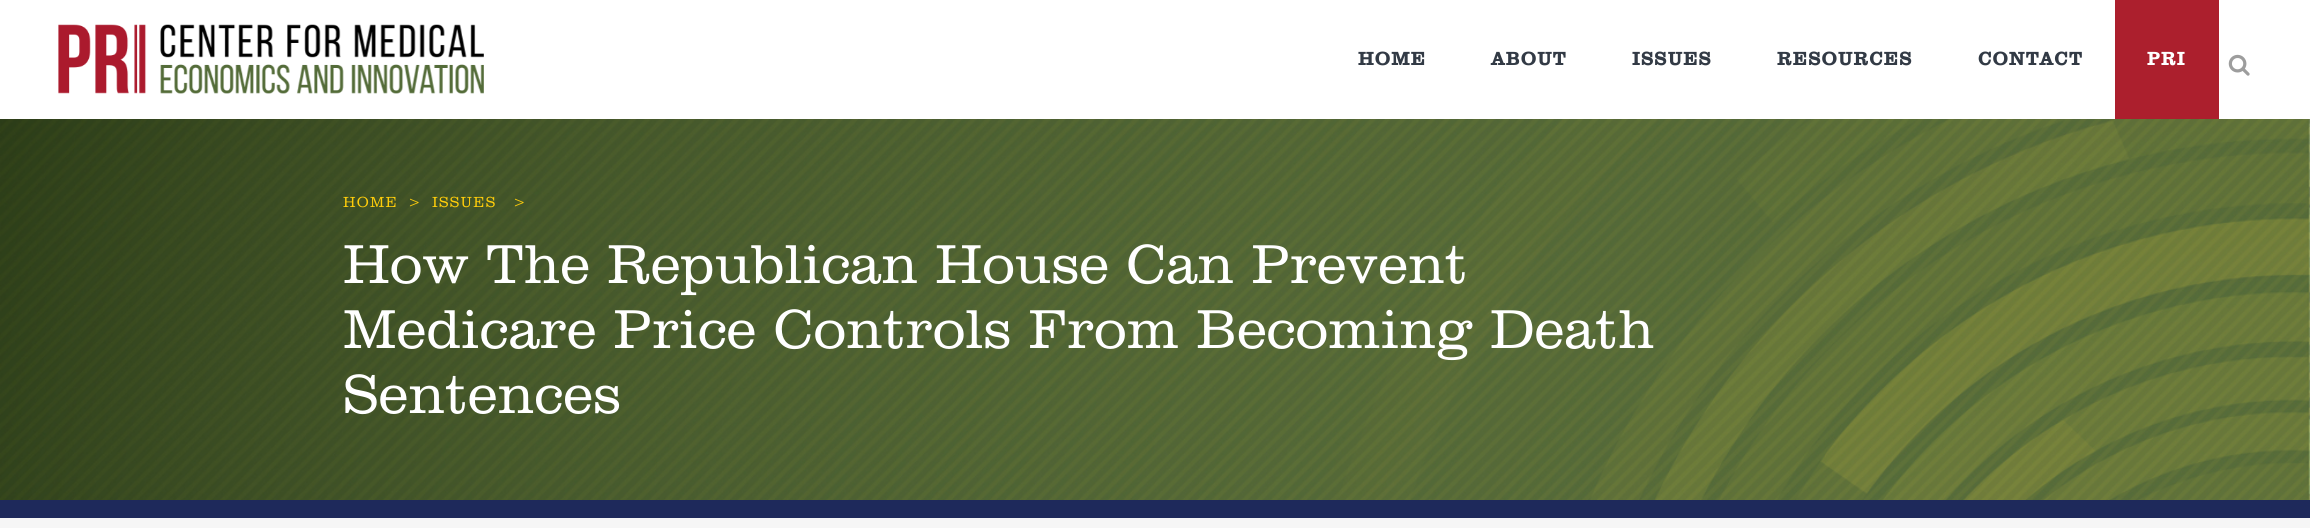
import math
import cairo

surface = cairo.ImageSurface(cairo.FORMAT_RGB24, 2310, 528)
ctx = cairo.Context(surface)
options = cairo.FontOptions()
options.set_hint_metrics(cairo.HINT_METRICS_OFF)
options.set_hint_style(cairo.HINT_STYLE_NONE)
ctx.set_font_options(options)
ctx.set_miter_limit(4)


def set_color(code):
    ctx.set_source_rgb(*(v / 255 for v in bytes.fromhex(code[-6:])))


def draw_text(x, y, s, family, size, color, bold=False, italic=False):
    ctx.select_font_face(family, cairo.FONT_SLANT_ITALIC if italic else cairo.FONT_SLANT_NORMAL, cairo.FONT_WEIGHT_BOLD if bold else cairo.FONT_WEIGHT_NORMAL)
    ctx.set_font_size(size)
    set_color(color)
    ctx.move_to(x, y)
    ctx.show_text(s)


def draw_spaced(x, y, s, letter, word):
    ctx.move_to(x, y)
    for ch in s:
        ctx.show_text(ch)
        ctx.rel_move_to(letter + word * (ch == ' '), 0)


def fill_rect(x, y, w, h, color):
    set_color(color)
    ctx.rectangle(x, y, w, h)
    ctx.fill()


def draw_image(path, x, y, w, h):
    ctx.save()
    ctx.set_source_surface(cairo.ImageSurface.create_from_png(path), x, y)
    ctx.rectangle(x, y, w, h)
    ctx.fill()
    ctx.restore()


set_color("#f6f6f6")
ctx.paint()
fill_rect(0, 0, 2310, 119, "#ffffff")
draw_image("assets/img1.png", 58, 24, 426, 70)
ctx.select_font_face("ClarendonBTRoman", cairo.FONT_SLANT_NORMAL, cairo.FONT_WEIGHT_BOLD)
ctx.set_font_size(18.75)
set_color("#323a45")
draw_spaced(1358, 65, "HOME", 1.25, 0)
draw_spaced(1491, 65, "ABOUT", 1.25, 0)
draw_spaced(1632, 65, "ISSUES", 1.25, 0)
draw_spaced(1777, 65, "RESOURCES", 1.25, 0)
draw_spaced(1978, 65, "CONTACT", 1.25, 0)
fill_rect(2115, 0, 104, 119, "#ac1f2d")
set_color("#ffffff")
draw_spaced(2147, 65, "PRI", 1.25, 0)
draw_image("assets/img2.png", 2228, 54, 22, 22)
draw_image("assets/img3.png", 0, 119, 2310, 381)
fill_rect(0, 500, 2310, 18, "#1e295b")
ctx.select_font_face("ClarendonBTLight")
ctx.set_font_size(15)
set_color("#ffcd0a")
draw_spaced(343, 207, "HOME", 1.25, 0)
draw_spaced(408, 207, ">", 1.25, 0)
draw_spaced(432, 207, "ISSUES", 1.25, 0)
draw_spaced(513, 207, ">", 1.25, 0)
draw_text(343, 283, "How The Republican House Can Prevent", "ClarendonBTLight", 56.25, "#ffffff")
draw_text(343, 348, "Medicare Price Controls From Becoming Death", "ClarendonBTLight", 56.25, "#ffffff")
draw_text(343, 413, "Sentences", "ClarendonBTLight", 56.25, "#ffffff")
surface.write_to_png("output.png")
